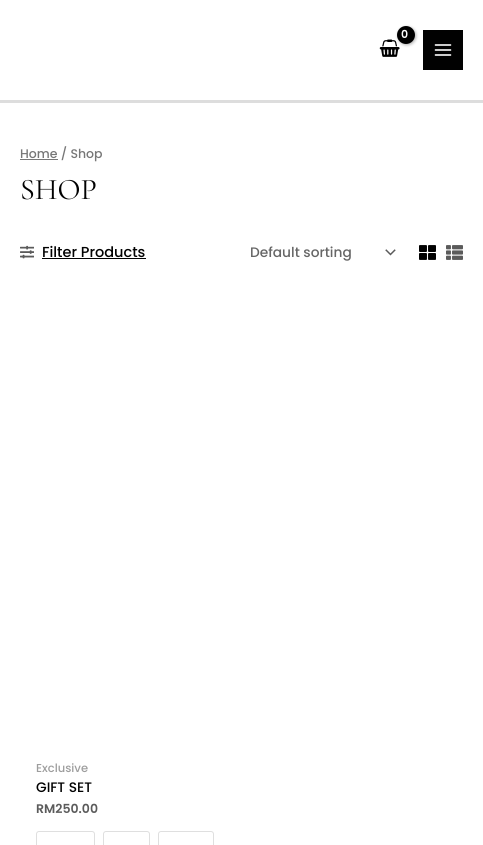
import math
import cairo

surface = cairo.ImageSurface(cairo.FORMAT_RGB24, 483, 845)
ctx = cairo.Context(surface)
options = cairo.FontOptions()
options.set_hint_metrics(cairo.HINT_METRICS_OFF)
options.set_hint_style(cairo.HINT_STYLE_NONE)
ctx.set_font_options(options)
ctx.set_miter_limit(4)


def set_color(code):
    ctx.set_source_rgb(*(v / 255 for v in bytes.fromhex(code[-6:])))


def draw_text(x, y, s, family, size, color, bold=False, italic=False):
    ctx.select_font_face(family, cairo.FONT_SLANT_ITALIC if italic else cairo.FONT_SLANT_NORMAL, cairo.FONT_WEIGHT_BOLD if bold else cairo.FONT_WEIGHT_NORMAL)
    ctx.set_font_size(size)
    set_color(color)
    ctx.move_to(x, y)
    ctx.show_text(s)


def fill_rect(x, y, w, h, color):
    set_color(color)
    ctx.rectangle(x, y, w, h)
    ctx.fill()


def rounded_rect(x, y, w, h, r):
    ctx.new_sub_path()
    for i, (u, v) in enumerate([(x + w - r, y + h - r), (x + r, y + h - r), (x + r, y + r), (x + w - r, y + r)]):
        ctx.arc(u, v, r, i * math.pi / 2, (i + 1) * math.pi / 2)
    ctx.close_path()


def draw_shadow(x, y, w, h, r, blur, alpha):
    ctx.push_group_with_content(cairo.CONTENT_ALPHA)
    ctx.set_operator(cairo.OPERATOR_SOURCE)
    for i in range(15, -16, -2):
        e = blur * i / 6
        if min(w, h) + 2 * e > 0:
            ctx.set_source_rgba(0, 0, 0, alpha * math.erfc((i - 1) / 8.5) / 2)
            rounded_rect(x - e, y - e, w + 2 * e, h + 2 * e, max(0, min(r + e + blur * .6, min(w, h) / 2 + e)))
            ctx.fill()
    ctx.mask(ctx.pop_group())


def draw_image(path, x, y, w, h):
    ctx.save()
    ctx.set_source_surface(cairo.ImageSurface.create_from_png(path), x, y)
    ctx.rectangle(x, y, w, h)
    ctx.fill()
    ctx.restore()


set_color("#ffffff")
ctx.paint()
fill_rect(0, 100, 483, 3, "#dddddd")
draw_image("assets/img1.png", 379, 39, 21, 18)
set_color("#000000")
draw_shadow(398, 27, 18, 18, 9, 1.5, 0.3)
set_color("#000000")
ctx.arc(406, 35, 9, 0, 2 * math.pi)
ctx.fill()
draw_text(401, 38, "0", "Poppins SemiBold", 11, "#fefefe")
fill_rect(423, 30, 40, 40, "#010101")
draw_image("assets/img2.png", 434, 44, 18, 12)
fill_rect(20, 159, 38, 1, "#777777")
draw_text(20, 158, "Home / Shop", "Poppins Medium", 12.5, "#777777")
draw_text(20, 199, "SHOP", "Cormorant Garamond Light", 30, "#010101")
draw_image("assets/img3.png", 20, 245, 14, 14)
draw_text(42, 257, "Filter Products", "Poppins Medium", 14.5, "#010101")
fill_rect(42, 258, 104, 1, "#010101")
draw_image("assets/img4.png", 385, 249, 11, 7)
draw_text(250, 257, "Default sorting", "Poppins Medium", 13.75, "#666666")
draw_image("assets/img5.png", 419, 245, 17, 15)
draw_image("assets/img6.png", 446, 245, 17, 15)
draw_text(36, 772, "Exclusive", "Poppins Medium", 11.5, "#9d9d9d")
draw_text(36, 792, "GIFT SET", "Poppins Medium", 13.75, "#010101")
draw_text(36, 813, "RM250.00", "Poppins SemiBold", 12.5, "#5b5b5b")
rounded_rect(36.5, 831.5, 58, 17, 2.5)
set_color("#dfdfdf")
ctx.set_line_width(1)
ctx.stroke()
rounded_rect(103.5, 831.5, 46, 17, 2.5)
ctx.stroke()
rounded_rect(158.5, 831.5, 55, 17, 2.5)
ctx.stroke()
surface.write_to_png("output.png")
